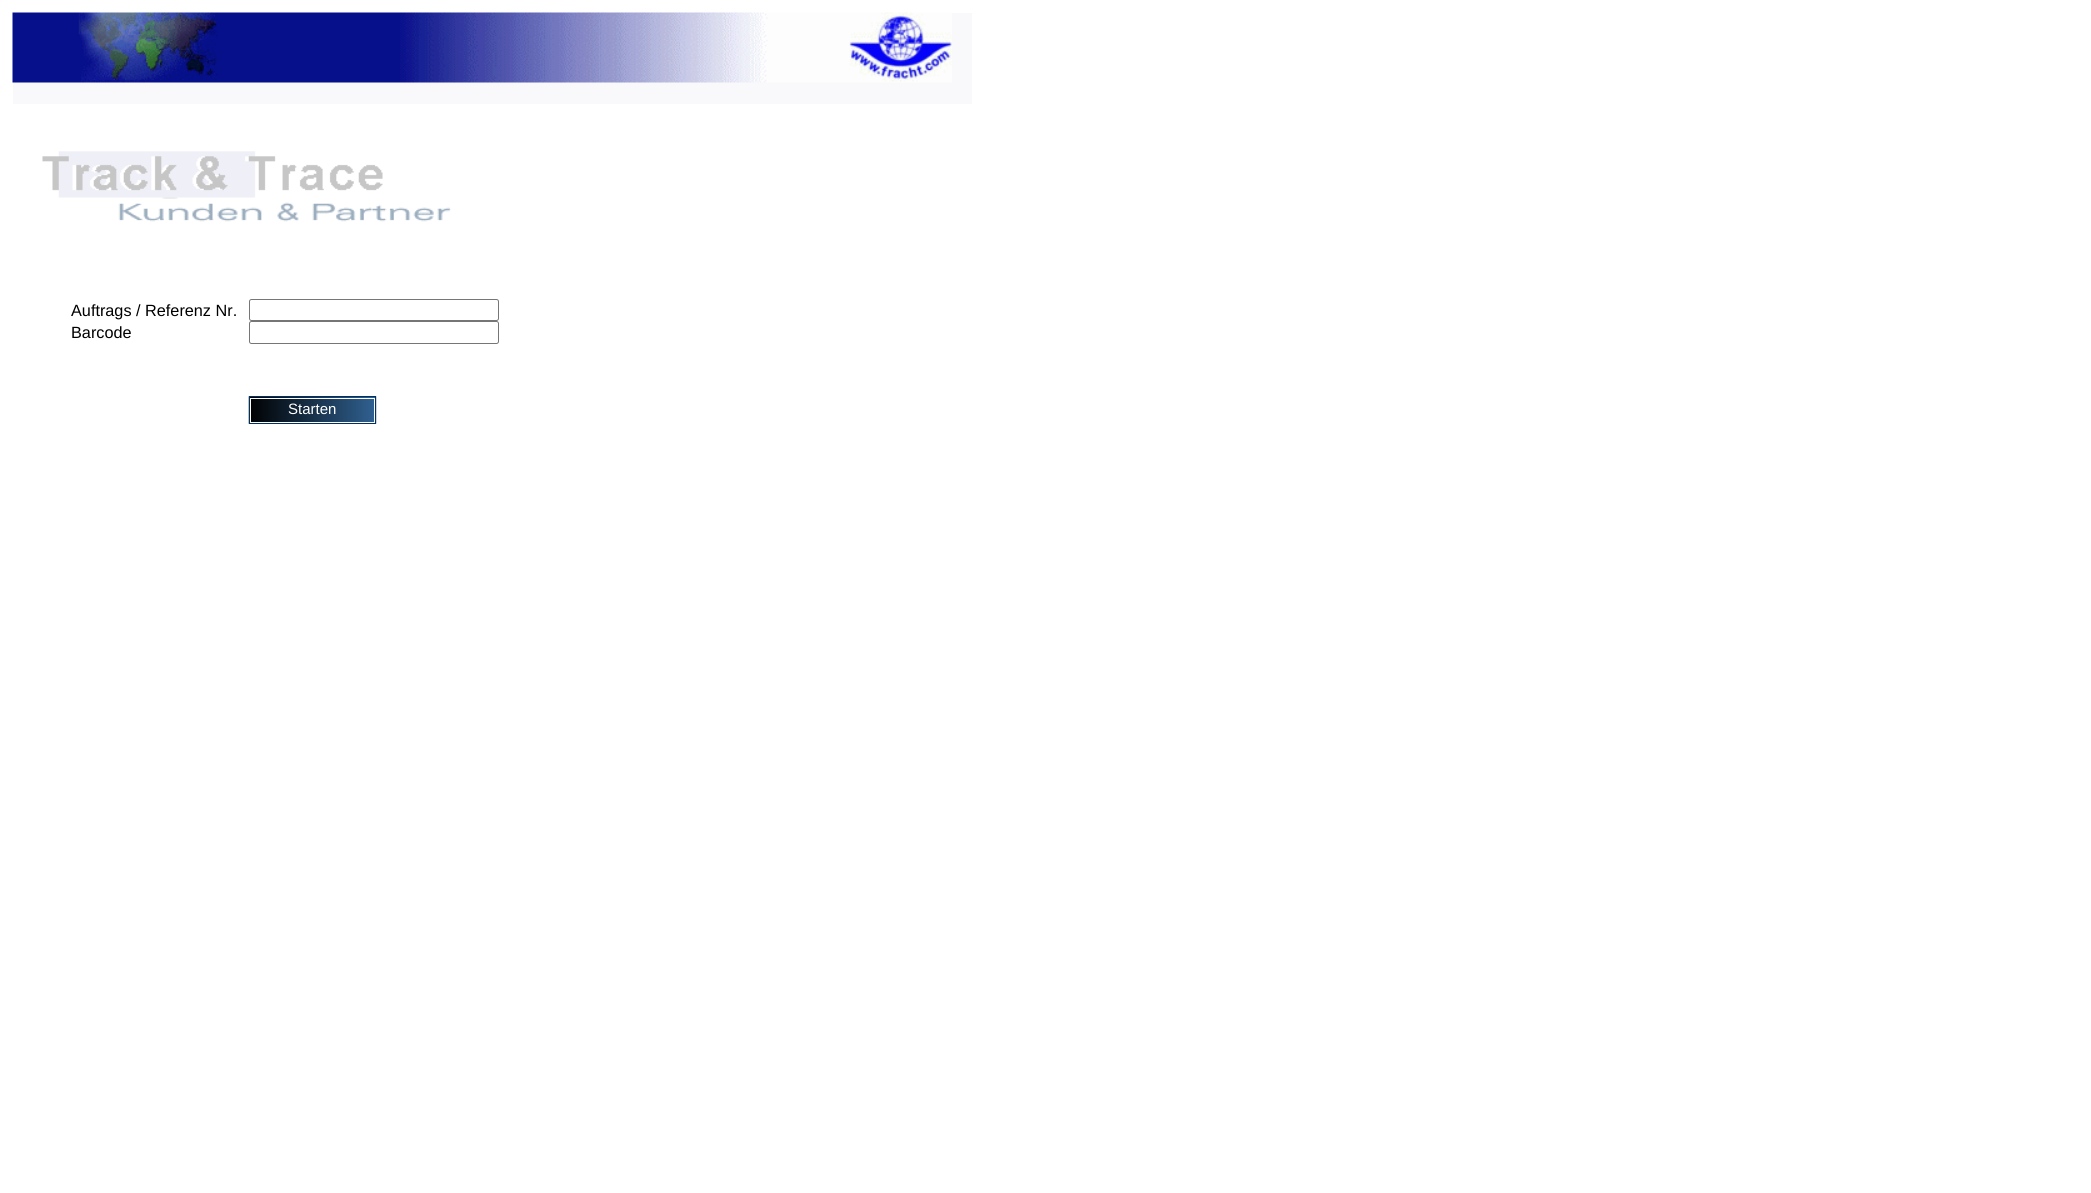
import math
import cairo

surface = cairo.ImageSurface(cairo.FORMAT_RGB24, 2091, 1193)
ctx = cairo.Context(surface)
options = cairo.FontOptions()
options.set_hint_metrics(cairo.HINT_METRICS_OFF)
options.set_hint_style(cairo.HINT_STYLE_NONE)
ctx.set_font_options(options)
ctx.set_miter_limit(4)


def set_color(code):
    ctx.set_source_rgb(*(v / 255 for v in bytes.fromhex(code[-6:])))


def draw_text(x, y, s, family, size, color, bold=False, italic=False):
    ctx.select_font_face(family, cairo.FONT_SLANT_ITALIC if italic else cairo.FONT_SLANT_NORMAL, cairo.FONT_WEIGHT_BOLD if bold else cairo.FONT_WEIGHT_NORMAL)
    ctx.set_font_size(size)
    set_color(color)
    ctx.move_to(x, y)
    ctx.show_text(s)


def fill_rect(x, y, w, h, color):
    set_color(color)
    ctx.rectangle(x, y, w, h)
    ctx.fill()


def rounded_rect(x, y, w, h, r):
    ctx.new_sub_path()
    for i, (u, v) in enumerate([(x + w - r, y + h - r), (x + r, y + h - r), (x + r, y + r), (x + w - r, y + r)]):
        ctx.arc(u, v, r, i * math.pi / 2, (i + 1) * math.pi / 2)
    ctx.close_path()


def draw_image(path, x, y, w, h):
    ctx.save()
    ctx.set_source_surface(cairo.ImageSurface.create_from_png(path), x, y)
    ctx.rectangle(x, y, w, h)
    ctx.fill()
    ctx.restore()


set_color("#ffffff")
ctx.paint()
fill_rect(13, 13, 959, 91, "#f9f9fb")
draw_image("assets/img1.png", 12, 12, 940, 71)
draw_image("assets/img2.png", 42, 151, 409, 71)
draw_text(71, 316, "Auftrags / Referenz Nr.", "Liberation Sans", 16.25, "#000000")
rounded_rect(249.5, 299.5, 249, 21, 2)
set_color("#767676")
ctx.set_line_width(1)
ctx.stroke()
draw_text(71, 338, "Barcode", "Liberation Sans", 16.25, "#000000")
rounded_rect(249.5, 321.5, 249, 22, 2)
set_color("#767676")
ctx.stroke()
draw_image("assets/img3.png", 248, 396, 129, 28)
ctx.rectangle(249.5, 396.5, 126, 27)
set_color("#003163")
ctx.stroke()
ctx.rectangle(250.5, 398.5, 124, 24)
set_color("#ffffff")
ctx.stroke()
draw_text(288, 414, "Starten", "Liberation Sans", 15, "#ffffff")
surface.write_to_png("output.png")
